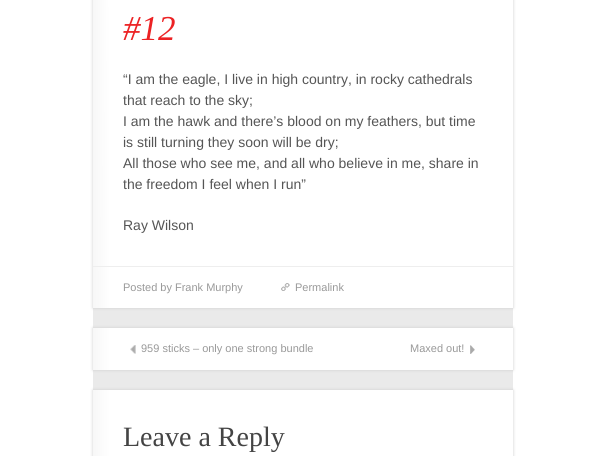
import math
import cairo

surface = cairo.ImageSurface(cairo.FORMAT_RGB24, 605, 456)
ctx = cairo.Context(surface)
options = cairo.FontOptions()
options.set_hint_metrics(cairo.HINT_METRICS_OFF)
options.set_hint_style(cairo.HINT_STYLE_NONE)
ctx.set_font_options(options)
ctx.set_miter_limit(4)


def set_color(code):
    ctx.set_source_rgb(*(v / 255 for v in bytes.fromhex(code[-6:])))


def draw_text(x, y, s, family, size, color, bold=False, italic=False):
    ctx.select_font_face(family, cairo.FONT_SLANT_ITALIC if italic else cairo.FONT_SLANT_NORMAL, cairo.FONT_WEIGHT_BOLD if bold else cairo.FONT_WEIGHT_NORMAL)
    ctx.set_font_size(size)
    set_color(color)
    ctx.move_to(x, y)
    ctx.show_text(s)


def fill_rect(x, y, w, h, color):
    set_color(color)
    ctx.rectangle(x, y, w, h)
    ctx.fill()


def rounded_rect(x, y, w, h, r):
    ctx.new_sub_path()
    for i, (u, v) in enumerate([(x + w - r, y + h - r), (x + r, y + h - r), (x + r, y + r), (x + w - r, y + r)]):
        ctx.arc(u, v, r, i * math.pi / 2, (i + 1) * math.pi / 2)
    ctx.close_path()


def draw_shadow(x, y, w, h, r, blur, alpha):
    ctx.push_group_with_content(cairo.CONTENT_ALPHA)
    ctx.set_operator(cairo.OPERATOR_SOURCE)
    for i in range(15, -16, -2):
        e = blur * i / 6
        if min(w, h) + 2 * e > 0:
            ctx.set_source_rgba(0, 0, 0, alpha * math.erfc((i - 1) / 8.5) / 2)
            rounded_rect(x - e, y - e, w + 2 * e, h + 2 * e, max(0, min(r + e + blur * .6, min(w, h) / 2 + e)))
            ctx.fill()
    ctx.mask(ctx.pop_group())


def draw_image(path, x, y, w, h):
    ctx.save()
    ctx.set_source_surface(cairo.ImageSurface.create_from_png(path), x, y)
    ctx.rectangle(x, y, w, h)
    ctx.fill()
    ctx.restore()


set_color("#ffffff")
ctx.paint()
fill_rect(93, 308, 420, 82, "#eaeaea")
set_color("#cccccc")
draw_shadow(93, -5, 420, 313, 0, 1.5, 1)
gradient = cairo.LinearGradient(93, 109, 513, 108)
gradient.add_color_stop_rgba(0, 0.969, 0.969, 0.969, 1)
gradient.add_color_stop_rgba(0.04, 1, 1, 1, 1)
gradient.add_color_stop_rgba(1, 1, 1, 1, 1)
ctx.set_source(gradient)
ctx.rectangle(93, 0, 420, 308)
ctx.fill()
draw_text(123, 40, "#12", "Liberation Serif", 35, "#ec2224", italic=True)
draw_text(123, 84, "“I am the eagle, I live in high country, in rocky cathedrals", "Liberation Sans", 14, "#555555")
draw_text(123, 105, "that reach to the sky;", "Liberation Sans", 14, "#555555")
draw_text(123, 126, "I am the hawk and there’s blood on my feathers, but time", "Liberation Sans", 14, "#555555")
draw_text(123, 147, "is still turning they soon will be dry;", "Liberation Sans", 14, "#555555")
draw_text(123, 168, "All those who see me, and all who believe in me, share in", "Liberation Sans", 14, "#555555")
draw_text(123, 189, "the freedom I feel when I run”", "Liberation Sans", 14, "#555555")
draw_text(123, 230, "Ray Wilson", "Liberation Sans", 14, "#555555")
fill_rect(93, 266, 420, 1, "#eeeeee")
draw_text(123, 291, "Posted by Frank Murphy", "Liberation Sans", 11, "#999999")
draw_image("assets/img1.png", 281, 283, 9, 8)
draw_text(295, 291, "Permalink", "Liberation Sans", 11, "#999999")
set_color("#cccccc")
draw_shadow(93, 328, 420, 42, 0, 1.5, 1)
gradient = cairo.LinearGradient(93, 349, 513, 349)
gradient.add_color_stop_rgba(0, 0.969, 0.969, 0.969, 1)
gradient.add_color_stop_rgba(0.04, 1, 1, 1, 1)
gradient.add_color_stop_rgba(1, 1, 1, 1, 1)
ctx.set_source(gradient)
ctx.rectangle(93, 328, 420, 42)
ctx.fill()
draw_image("assets/img2.png", 130, 345, 6, 9)
draw_text(141, 352, "959 sticks – only one strong bundle", "Liberation Sans", 11, "#999999")
draw_image("assets/img3.png", 470, 345, 5, 9)
draw_text(410, 352, "Maxed out!", "Liberation Sans", 11, "#999999")
set_color("#cccccc")
draw_shadow(93, 390, 420, 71, 0, 1.5, 1)
gradient = cairo.LinearGradient(93, 452, 513, 452)
gradient.add_color_stop_rgba(0, 0.969, 0.969, 0.969, 1)
gradient.add_color_stop_rgba(0.04, 1, 1, 1, 1)
gradient.add_color_stop_rgba(1, 1, 1, 1, 1)
ctx.set_source(gradient)
ctx.rectangle(93, 390, 420, 66)
ctx.fill()
draw_text(123, 446, "Leave a Reply", "Liberation Serif", 28, "#444444")
surface.write_to_png("output.png")
